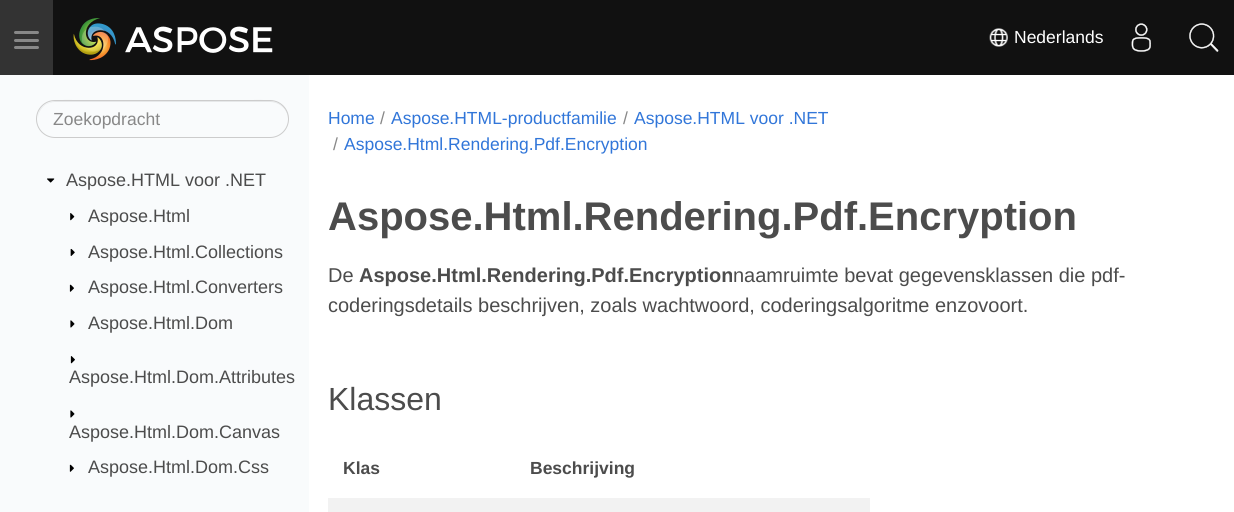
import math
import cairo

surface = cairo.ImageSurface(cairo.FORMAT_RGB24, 1234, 512)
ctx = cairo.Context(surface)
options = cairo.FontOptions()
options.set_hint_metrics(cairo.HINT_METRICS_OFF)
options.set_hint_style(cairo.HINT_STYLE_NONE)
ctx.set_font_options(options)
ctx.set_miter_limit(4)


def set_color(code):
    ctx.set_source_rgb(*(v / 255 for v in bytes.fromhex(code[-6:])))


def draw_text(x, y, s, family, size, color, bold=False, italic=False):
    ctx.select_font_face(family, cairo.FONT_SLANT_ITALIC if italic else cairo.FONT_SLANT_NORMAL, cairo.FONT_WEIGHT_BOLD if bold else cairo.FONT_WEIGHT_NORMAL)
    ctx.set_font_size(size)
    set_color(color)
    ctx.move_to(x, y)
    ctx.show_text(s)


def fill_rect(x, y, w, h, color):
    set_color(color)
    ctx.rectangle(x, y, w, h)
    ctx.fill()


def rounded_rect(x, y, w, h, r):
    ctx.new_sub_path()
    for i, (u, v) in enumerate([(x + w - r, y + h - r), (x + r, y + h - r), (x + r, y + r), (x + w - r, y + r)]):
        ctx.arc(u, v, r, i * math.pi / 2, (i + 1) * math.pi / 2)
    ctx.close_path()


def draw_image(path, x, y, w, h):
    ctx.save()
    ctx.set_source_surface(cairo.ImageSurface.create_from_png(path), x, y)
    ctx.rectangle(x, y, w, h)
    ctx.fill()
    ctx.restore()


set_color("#ffffff")
ctx.paint()
fill_rect(53, 0, 1181, 75, "#111111")
fill_rect(0, 0, 53, 75, "#333333")
set_color("#888888")
rounded_rect(14, 31, 25, 3, 1.5)
ctx.fill()
rounded_rect(14, 39, 25, 3, 1.5)
ctx.fill()
rounded_rect(14, 46, 25, 3, 1.5)
ctx.fill()
draw_image("assets/img1.png", 73, 18, 200, 43)
draw_image("assets/img2.png", 989, 28, 19, 19)
draw_text(1014, 43, "Nederlands", "Liberation Sans", 17.5, "#ffffff")
draw_image("assets/img3.png", 1131, 23, 20, 29)
draw_image("assets/img4.png", 1189, 23, 30, 29)
fill_rect(0, 75, 309, 437, "#f9fbfc")
set_color("#e6e8e9")
ctx.new_path()
ctx.move_to(55, 102)
ctx.line_to(270, 102)
ctx.curve_to(280, 102, 288, 110, 288, 119)
ctx.curve_to(289, 93, 247, 101, 235, 101)
ctx.line_to(91, 101)
ctx.curve_to(79, 101, 37, 93, 38, 119)
ctx.curve_to(38, 110, 45, 102, 55, 102)
ctx.close_path()
ctx.fill()
rounded_rect(36.5, 100.5, 252, 37, 18.5)
set_color("#cccccc")
ctx.set_line_width(1)
ctx.stroke()
draw_text(53, 125, "Zoekopdracht", "Liberation Sans", 17.5, "#888888")
draw_image("assets/img5.png", 47, 178, 8, 5)
draw_text(66, 186, "Aspose.HTML voor .NET", "Liberation Sans", 18, "#4c4c4c")
draw_image("assets/img6.png", 70, 213, 5, 8)
draw_text(88, 222, "Aspose.Html", "Liberation Sans", 18, "#4c4c4c")
draw_image("assets/img7.png", 70, 248, 5, 8)
draw_text(88, 258, "Aspose.Html.Collections", "Liberation Sans", 18, "#4c4c4c")
draw_image("assets/img8.png", 69, 284, 5, 8)
draw_text(88, 293, "Aspose.Html.Converters", "Liberation Sans", 18, "#4c4c4c")
draw_image("assets/img9.png", 70, 320, 5, 8)
draw_text(88, 329, "Aspose.Html.Dom", "Liberation Sans", 18, "#4c4c4c")
draw_image("assets/img10.png", 70, 356, 5, 8)
draw_text(69, 383, "Aspose.Html.Dom.Attributes", "Liberation Sans", 18, "#4c4c4c")
draw_image("assets/img11.png", 70, 410, 5, 8)
draw_text(69, 438, "Aspose.Html.Dom.Canvas", "Liberation Sans", 18, "#4c4c4c")
draw_image("assets/img12.png", 69, 464, 5, 8)
draw_text(88, 473, "Aspose.Html.Dom.Css", "Liberation Sans", 18, "#4c4c4c")
draw_text(328, 124, "Home", "Liberation Sans", 17.5, "#3176d9")
draw_text(380, 124, "/", "Liberation Sans", 17.5, "#888888")
draw_text(391, 124, "Aspose.HTML-productfamilie", "Liberation Sans", 17.5, "#3176d9")
draw_text(623, 124, "/", "Liberation Sans", 17.5, "#888888")
draw_text(634, 124, "Aspose.HTML voor .NET", "Liberation Sans", 17.5, "#3176d9")
draw_text(333, 150, "/", "Liberation Sans", 17.5, "#888888")
draw_text(344, 150, "Aspose.Html.Rendering.Pdf.Encryption", "Liberation Sans", 17.5, "#3176d9")
draw_text(328, 230, "Aspose.Html.Rendering.Pdf.Encryption", "Liberation Sans", 40, "#4c4c4c", bold=True)
draw_text(328, 282, "De", "Liberation Sans", 20, "#4c4c4c")
draw_text(359, 282, "Aspose.Html.Rendering.Pdf.Encryption", "Liberation Sans", 20, "#4c4c4c", bold=True)
draw_text(733, 282, "naamruimte bevat gegevensklassen die pdf-", "Liberation Sans", 20, "#4c4c4c")
draw_text(328, 312, "coderingsdetails beschrijven, zoals wachtwoord, coderingsalgoritme enzovoort.", "Liberation Sans", 20, "#4c4c4c")
draw_text(328, 410, "Klassen", "Liberation Sans", 32, "#4c4c4c")
draw_text(343, 474, "Klas", "Liberation Sans", 17.5, "#4c4c4c", bold=True)
draw_text(530, 474, "Beschrijving", "Liberation Sans", 17.5, "#4c4c4c", bold=True)
fill_rect(328, 498, 542, 14, "#f2f2f2")
surface.write_to_png("output.png")
